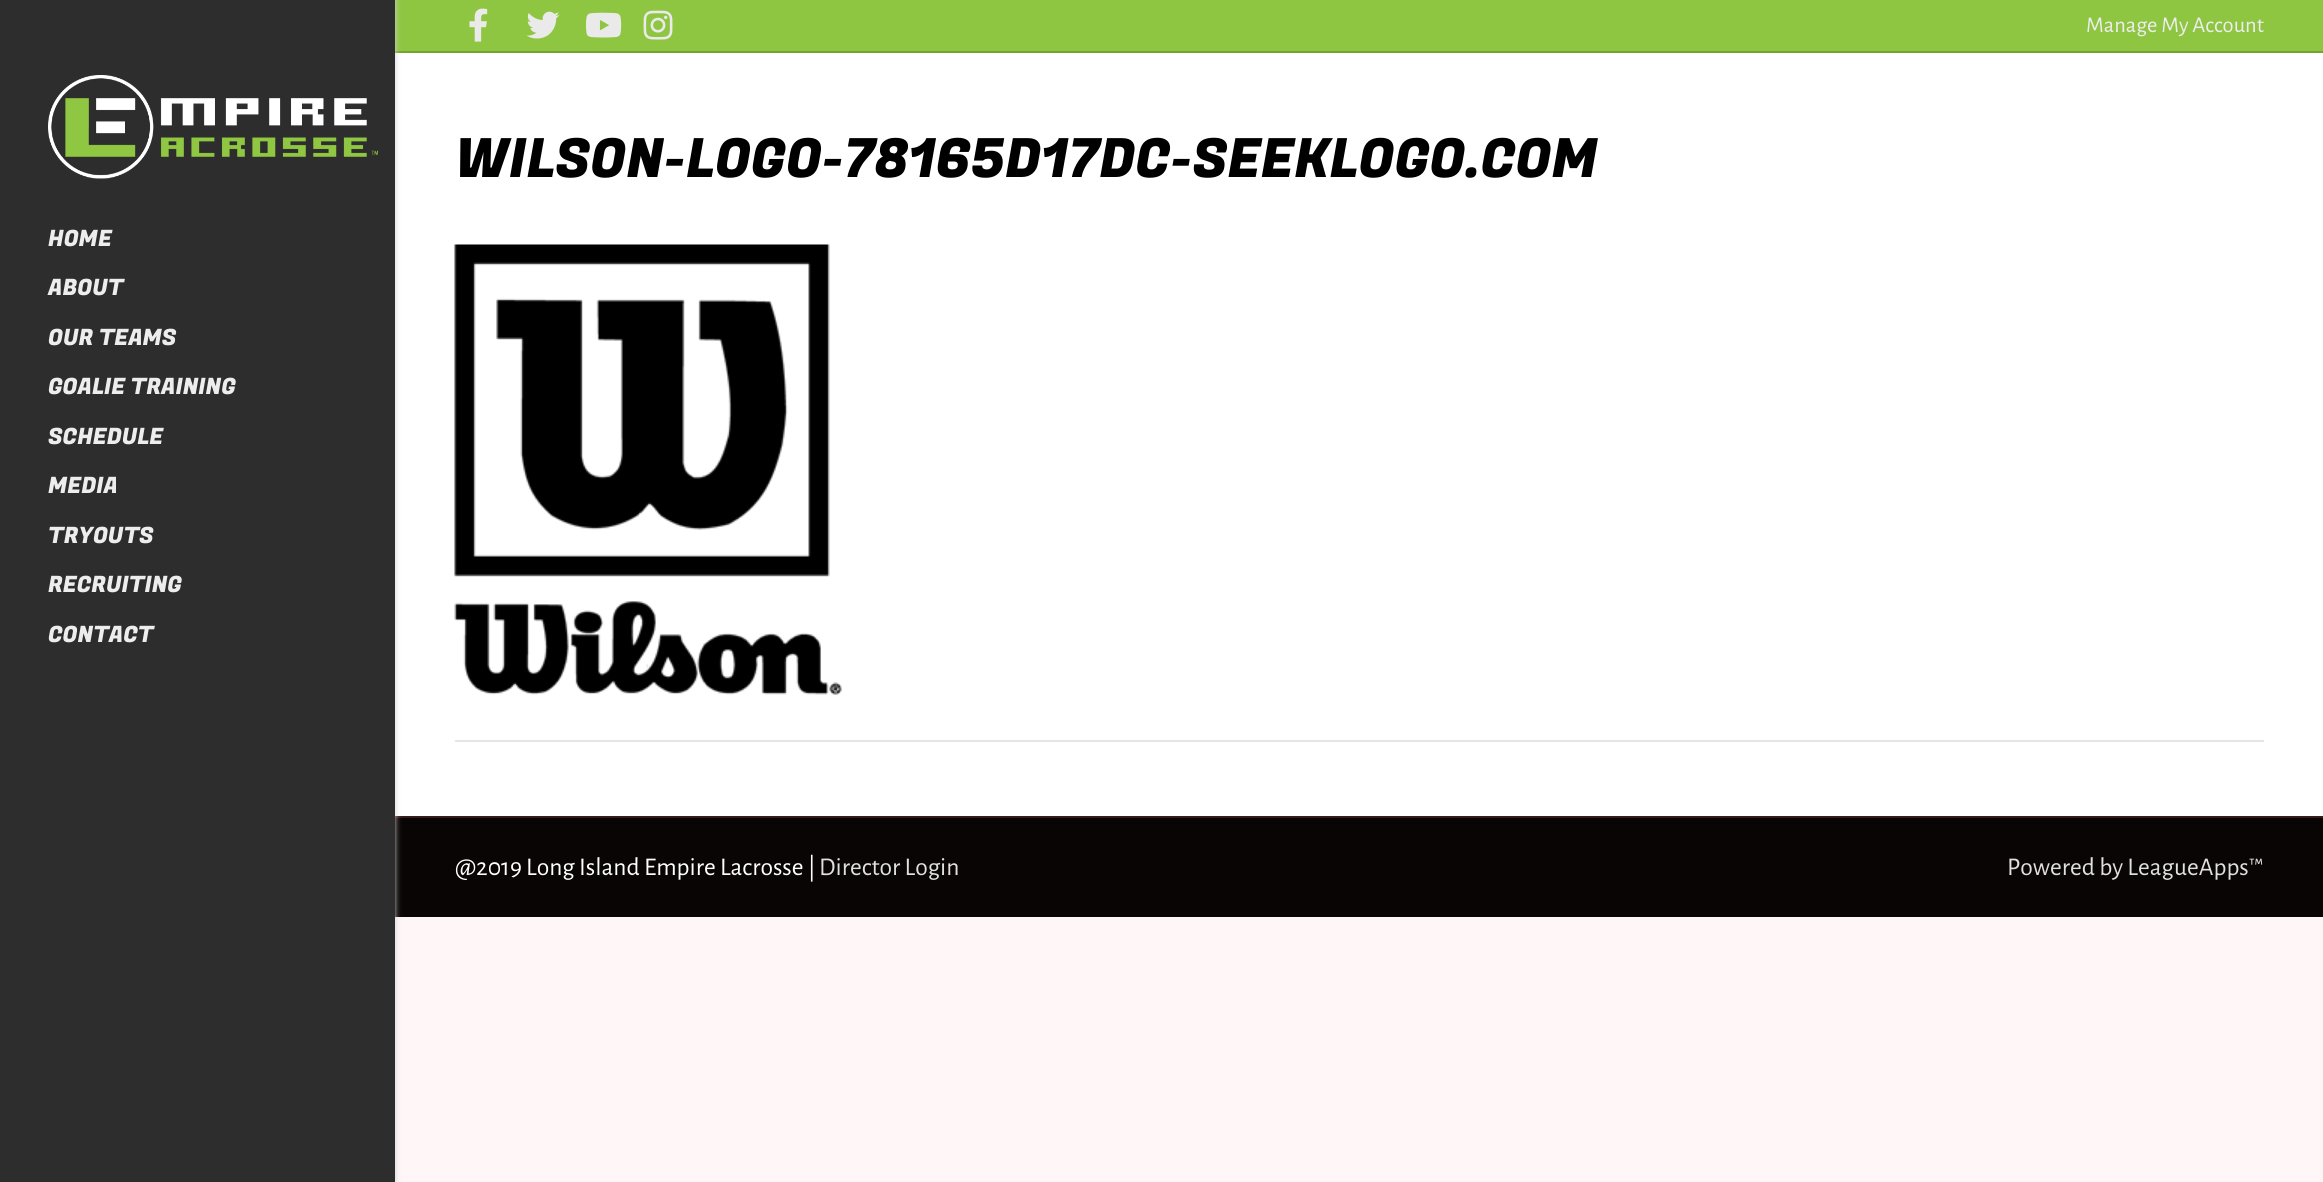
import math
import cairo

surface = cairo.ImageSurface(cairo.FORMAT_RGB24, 2323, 1182)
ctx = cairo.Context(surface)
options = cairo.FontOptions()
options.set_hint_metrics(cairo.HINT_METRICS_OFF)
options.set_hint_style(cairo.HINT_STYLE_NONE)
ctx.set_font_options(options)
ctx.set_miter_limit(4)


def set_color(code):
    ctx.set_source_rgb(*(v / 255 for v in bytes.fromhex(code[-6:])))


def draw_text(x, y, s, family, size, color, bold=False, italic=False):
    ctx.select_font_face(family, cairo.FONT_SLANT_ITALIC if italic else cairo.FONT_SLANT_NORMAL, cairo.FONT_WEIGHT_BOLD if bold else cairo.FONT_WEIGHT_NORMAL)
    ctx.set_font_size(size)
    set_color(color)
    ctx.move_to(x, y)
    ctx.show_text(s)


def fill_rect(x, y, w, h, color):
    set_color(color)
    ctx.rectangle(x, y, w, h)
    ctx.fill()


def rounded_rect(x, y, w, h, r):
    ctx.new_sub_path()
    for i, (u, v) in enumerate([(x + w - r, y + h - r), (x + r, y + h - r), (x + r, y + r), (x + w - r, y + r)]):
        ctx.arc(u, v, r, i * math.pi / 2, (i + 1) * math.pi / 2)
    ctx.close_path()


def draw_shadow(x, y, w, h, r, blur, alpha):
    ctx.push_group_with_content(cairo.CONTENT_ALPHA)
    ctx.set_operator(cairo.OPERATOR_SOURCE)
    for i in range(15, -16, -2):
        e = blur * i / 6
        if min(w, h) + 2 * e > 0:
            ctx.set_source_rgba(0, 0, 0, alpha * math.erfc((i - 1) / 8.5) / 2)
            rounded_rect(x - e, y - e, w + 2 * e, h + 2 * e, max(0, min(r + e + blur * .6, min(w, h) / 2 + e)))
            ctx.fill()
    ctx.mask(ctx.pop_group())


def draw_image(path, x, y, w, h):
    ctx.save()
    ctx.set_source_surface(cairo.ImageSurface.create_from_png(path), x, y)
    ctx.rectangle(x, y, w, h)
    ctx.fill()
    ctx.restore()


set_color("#fff7f7")
ctx.paint()
fill_rect(395, 0, 1928, 51, "#8ec642")
fill_rect(395, 51, 1928, 2, "#73a431")
draw_image("assets/img1.png", 469, 8, 19, 34)
draw_image("assets/img2.png", 526, 11, 34, 28)
draw_image("assets/img3.png", 585, 12, 37, 26)
draw_image("assets/img4.png", 643, 10, 30, 30)
draw_text(2086, 32, "Manage My Account", "Alegreya Sans", 22.5, "#ededed")
fill_rect(395, 53, 1928, 763, "#ffffff")
draw_text(455, 177, "WILSON-LOGO-78165D17DC-SEEKLOGO.COM", "Fugaz One", 54, "#000000")
draw_image("assets/img5.png", 454, 244, 388, 451)
fill_rect(455, 740, 1809, 2, "#e6e6e6")
fill_rect(395, 818, 1928, 99, "#0a0505")
fill_rect(395, 816, 1928, 2, "#361b1b")
set_color("#cecece")
draw_shadow(0, 0, 395, 1182, 0, 3, 1)
fill_rect(0, 0, 395, 1182, "#2d2d2d")
draw_image("assets/img6.png", 48, 75, 330, 104)
draw_text(48, 246, "HOME", "Fugaz One", 22.5, "#ededed")
draw_text(48, 295, "ABOUT", "Fugaz One", 22.5, "#ededed")
draw_text(48, 345, "OUR TEAMS", "Fugaz One", 22.5, "#ededed")
draw_text(48, 394, "GOALIE TRAINING", "Fugaz One", 22.5, "#ededed")
draw_text(48, 444, "SCHEDULE", "Fugaz One", 22.5, "#ededed")
draw_text(48, 493, "MEDIA", "Fugaz One", 22.5, "#ededed")
draw_text(48, 543, "TRYOUTS", "Fugaz One", 22.5, "#ededed")
draw_text(48, 592, "RECRUITING", "Fugaz One", 22.5, "#ededed")
draw_text(48, 642, "CONTACT", "Fugaz One", 22.5, "#ededed")
draw_text(455, 875, "@2019 Long Island Empire Lacrosse |", "Alegreya Sans", 25.5, "#ffffff")
draw_text(819, 875, "Director Login", "Alegreya Sans", 25.5, "#e0e0e0")
draw_text(2007, 875, "Powered by LeagueApps™", "Alegreya Sans", 25.5, "#e0e0e0")
surface.write_to_png("output.png")
